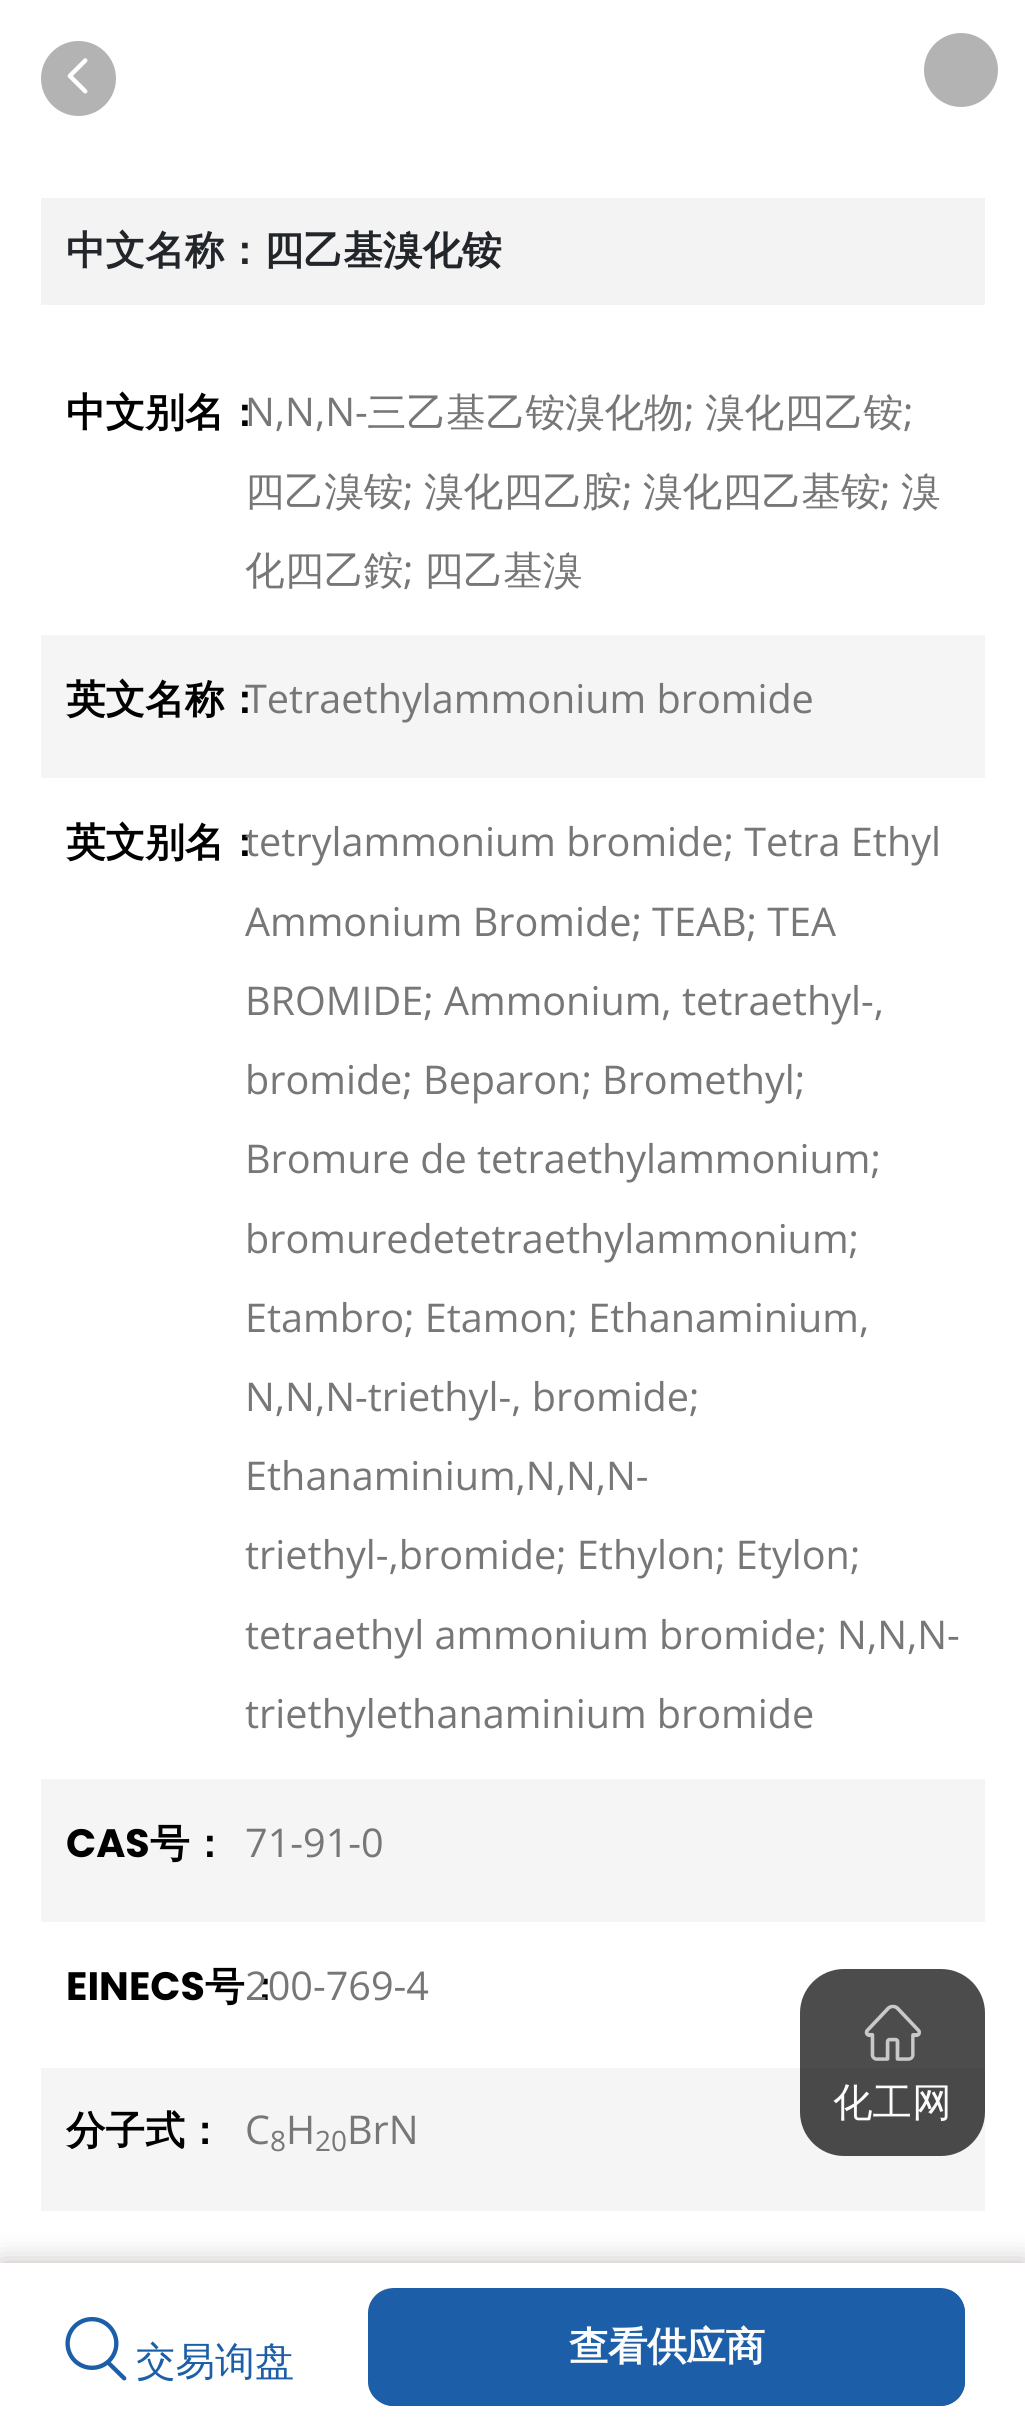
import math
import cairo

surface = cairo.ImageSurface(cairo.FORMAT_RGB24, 1025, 2429)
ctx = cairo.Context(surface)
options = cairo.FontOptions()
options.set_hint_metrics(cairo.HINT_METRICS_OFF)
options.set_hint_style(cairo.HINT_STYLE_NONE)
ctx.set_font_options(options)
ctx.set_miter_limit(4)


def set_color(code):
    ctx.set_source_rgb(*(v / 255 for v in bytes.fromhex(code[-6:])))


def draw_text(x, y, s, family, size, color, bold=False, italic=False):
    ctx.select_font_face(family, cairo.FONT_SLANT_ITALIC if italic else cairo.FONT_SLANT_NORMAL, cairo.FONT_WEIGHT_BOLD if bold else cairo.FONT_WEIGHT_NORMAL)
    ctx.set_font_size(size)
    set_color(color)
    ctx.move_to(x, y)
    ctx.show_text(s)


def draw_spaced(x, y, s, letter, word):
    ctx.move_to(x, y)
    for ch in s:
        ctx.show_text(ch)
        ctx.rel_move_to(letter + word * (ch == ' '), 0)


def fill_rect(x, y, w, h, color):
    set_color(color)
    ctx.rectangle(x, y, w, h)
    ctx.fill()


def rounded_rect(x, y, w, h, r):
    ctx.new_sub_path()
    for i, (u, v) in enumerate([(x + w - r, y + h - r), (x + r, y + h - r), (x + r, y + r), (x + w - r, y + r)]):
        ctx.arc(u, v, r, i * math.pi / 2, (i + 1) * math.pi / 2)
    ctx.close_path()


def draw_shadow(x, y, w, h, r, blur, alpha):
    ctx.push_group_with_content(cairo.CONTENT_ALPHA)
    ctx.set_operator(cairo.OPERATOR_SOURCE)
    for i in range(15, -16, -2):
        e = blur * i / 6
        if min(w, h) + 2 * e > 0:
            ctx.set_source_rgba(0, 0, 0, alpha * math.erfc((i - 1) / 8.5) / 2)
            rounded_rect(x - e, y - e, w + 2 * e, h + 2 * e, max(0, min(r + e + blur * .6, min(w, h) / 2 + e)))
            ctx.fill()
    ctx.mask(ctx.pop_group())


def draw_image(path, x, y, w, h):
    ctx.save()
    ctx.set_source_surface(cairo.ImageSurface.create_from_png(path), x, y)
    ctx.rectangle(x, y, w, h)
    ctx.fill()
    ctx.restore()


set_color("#ffffff")
ctx.paint()
set_color("#b3b3b3")
ctx.arc(78.5, 78.5, 37.5, 0, 2 * math.pi)
ctx.fill()
draw_image("assets/img1.png", 67, 58, 21, 36)
ctx.arc(961, 70, 37, 0, 2 * math.pi)
ctx.fill()
fill_rect(41, 198, 944, 107, "#f3f3f3")
draw_text(66, 264, "中文名称：四乙基溴化铵", "WenQuanYi Zen Hei", 39.6, "#222529", bold=True)
draw_text(66, 426, "中文别名：", "WenQuanYi Zen Hei", 39.6, "#000000", bold=True)
draw_text(245, 426, "N,N,N-", "Open Sans", 39.6, "#777777")
draw_text(367, 426, "三乙基乙铵溴化物", "WenQuanYi Zen Hei Medium", 39.6, "#777777")
draw_text(684, 426, ";", "Open Sans", 39.6, "#777777")
draw_text(705, 426, "溴化四乙铵", "WenQuanYi Zen Hei Medium", 39.6, "#777777")
draw_text(903, 426, ";", "Open Sans", 39.6, "#777777")
draw_text(245, 505, "四乙溴铵", "WenQuanYi Zen Hei Medium", 39.6, "#777777")
draw_text(403, 505, ";", "Open Sans", 39.6, "#777777")
draw_text(424, 505, "溴化四乙胺", "WenQuanYi Zen Hei Medium", 39.6, "#777777")
draw_text(622, 505, ";", "Open Sans", 39.6, "#777777")
draw_text(643, 505, "溴化四乙基铵", "WenQuanYi Zen Hei Medium", 39.6, "#777777")
draw_text(880, 505, ";", "Open Sans", 39.6, "#777777")
draw_text(901, 505, "溴", "WenQuanYi Zen Hei Medium", 39.6, "#777777")
draw_text(245, 584, "化四乙銨", "WenQuanYi Zen Hei Medium", 39.6, "#777777")
draw_text(403, 584, ";", "Open Sans", 39.6, "#777777")
draw_text(424, 584, "四乙基溴", "WenQuanYi Zen Hei Medium", 39.6, "#777777")
fill_rect(41, 635, 944, 143, "#f5f5f5")
draw_text(66, 713, "英文名称：", "WenQuanYi Zen Hei", 39.6, "#000000", bold=True)
draw_text(245, 713, "Tetraethylammonium bromide", "Open Sans", 39.6, "#777777")
draw_text(66, 856, "英文别名：", "WenQuanYi Zen Hei", 39.6, "#000000", bold=True)
draw_text(245, 856, "tetrylammonium bromide; Tetra Ethyl", "Open Sans", 39.6, "#777777")
draw_text(245, 936, "Ammonium Bromide; TEAB; TEA", "Open Sans", 39.6, "#777777")
draw_text(245, 1015, "BROMIDE; Ammonium, tetraethyl-,", "Open Sans", 39.6, "#777777")
draw_text(245, 1094, "bromide; Beparon; Bromethyl;", "Open Sans", 39.6, "#777777")
draw_text(245, 1173, "Bromure de tetraethylammonium;", "Open Sans", 39.6, "#777777")
draw_text(245, 1253, "bromuredetetraethylammonium;", "Open Sans", 39.6, "#777777")
draw_text(245, 1332, "Etambro; Etamon; Ethanaminium,", "Open Sans", 39.6, "#777777")
draw_text(245, 1411, "N,N,N-triethyl-, bromide;", "Open Sans", 39.6, "#777777")
draw_text(245, 1490, "Ethanaminium,N,N,N-", "Open Sans", 39.6, "#777777")
draw_text(245, 1569, "triethyl-,bromide; Ethylon; Etylon;", "Open Sans", 39.6, "#777777")
draw_text(245, 1649, "tetraethyl ammonium bromide; N,N,N-", "Open Sans", 39.6, "#777777")
draw_text(245, 1728, "triethylethanaminium bromide", "Open Sans", 39.6, "#777777")
fill_rect(41, 1779, 944, 143, "#f5f5f5")
draw_text(66, 1857, "CAS", "Poppins", 39.6, "#000000", bold=True)
draw_text(150, 1857, "号：", "WenQuanYi Zen Hei", 39.6, "#000000", bold=True)
draw_text(245, 1857, "71-91-0", "Open Sans", 39.6, "#777777")
draw_text(66, 2000, "EINECS", "Poppins", 39.6, "#000000", bold=True)
draw_text(205, 2000, "号：", "WenQuanYi Zen Hei", 39.6, "#000000", bold=True)
draw_text(245, 2000, "200-769-4", "Open Sans", 39.6, "#777777")
fill_rect(41, 2068, 944, 143, "#f5f5f5")
draw_text(66, 2144, "分子式：", "WenQuanYi Zen Hei", 39.6, "#000000", bold=True)
draw_text(245, 2144, "C", "Open Sans", 39.6, "#777777")
draw_text(270, 2151, "8", "Open Sans", 28, "#777777")
draw_text(286, 2144, "H", "Open Sans", 39.6, "#777777")
draw_text(315, 2151, "20", "Open Sans", 28, "#777777")
draw_text(347, 2144, "BrN", "Open Sans", 39.6, "#777777")
set_color("#9a8d8d")
draw_shadow(0, 2263, 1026, 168, 0, 14, 0.6)
fill_rect(0, 2263, 1025, 166, "#ffffff")
draw_image("assets/img2.png", 65, 2317, 62, 64)
draw_text(136, 2375, "交易询盘", "WenQuanYi Zen Hei Medium", 39.6, "#1c5fa8")
rounded_rect(369, 2288, 596, 118, 25)
ctx.fill()
ctx.set_fill_rule(cairo.FILL_RULE_EVEN_ODD)
ctx.new_path()
ctx.move_to(393, 2288)
ctx.line_to(940, 2288)
ctx.curve_to(954, 2288, 965, 2299, 965, 2313)
ctx.line_to(965, 2382)
ctx.curve_to(965, 2395, 954, 2406, 940, 2406)
ctx.line_to(393, 2406)
ctx.curve_to(380, 2406, 368, 2395, 368, 2382)
ctx.line_to(368, 2313)
ctx.curve_to(368, 2299, 380, 2288, 393, 2288)
ctx.close_path()
ctx.move_to(393, 2288)
ctx.line_to(940, 2288)
ctx.curve_to(953, 2288, 962, 2299, 962, 2313)
ctx.line_to(962, 2382)
ctx.curve_to(962, 2394, 953, 2404, 940, 2404)
ctx.line_to(393, 2404)
ctx.curve_to(381, 2404, 371, 2394, 371, 2382)
ctx.line_to(371, 2313)
ctx.curve_to(371, 2299, 381, 2288, 393, 2288)
ctx.close_path()
ctx.fill()
ctx.select_font_face("WenQuanYi Zen Hei", cairo.FONT_SLANT_NORMAL, cairo.FONT_WEIGHT_BOLD)
set_color("#fcfcfc")
draw_spaced(569, 2360, "查看供应商", -0.5, 0)
ctx.set_source_rgba(0, 0, 0, 0.7)
rounded_rect(800, 1969, 185, 187, 44)
ctx.fill()
draw_image("assets/img3.png", 864, 2004, 57, 57)
draw_text(833, 2116, "化工网", "WenQuanYi Zen Hei Medium", 39.6, "#fcfcfc")
surface.write_to_png("output.png")
